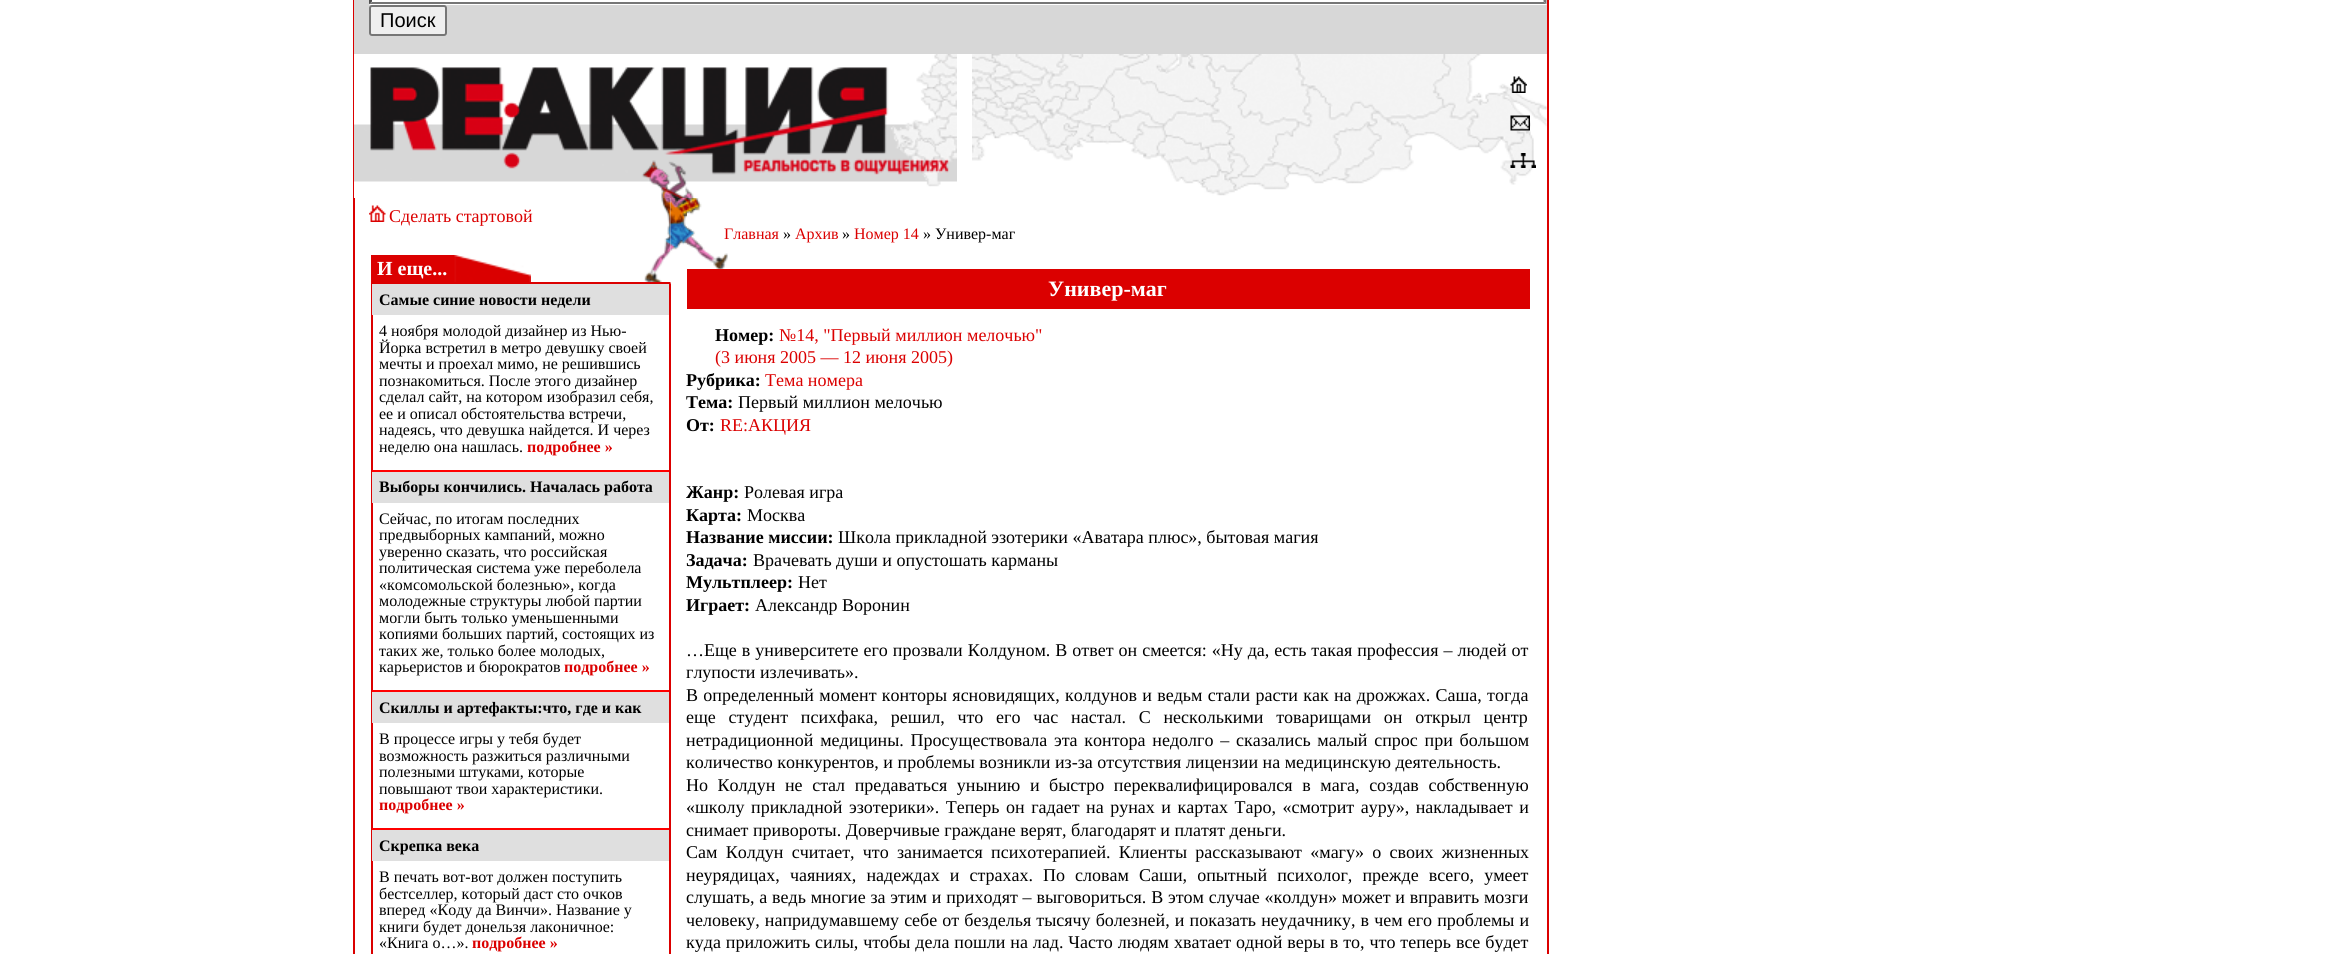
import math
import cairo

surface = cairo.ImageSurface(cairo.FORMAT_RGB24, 2350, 954)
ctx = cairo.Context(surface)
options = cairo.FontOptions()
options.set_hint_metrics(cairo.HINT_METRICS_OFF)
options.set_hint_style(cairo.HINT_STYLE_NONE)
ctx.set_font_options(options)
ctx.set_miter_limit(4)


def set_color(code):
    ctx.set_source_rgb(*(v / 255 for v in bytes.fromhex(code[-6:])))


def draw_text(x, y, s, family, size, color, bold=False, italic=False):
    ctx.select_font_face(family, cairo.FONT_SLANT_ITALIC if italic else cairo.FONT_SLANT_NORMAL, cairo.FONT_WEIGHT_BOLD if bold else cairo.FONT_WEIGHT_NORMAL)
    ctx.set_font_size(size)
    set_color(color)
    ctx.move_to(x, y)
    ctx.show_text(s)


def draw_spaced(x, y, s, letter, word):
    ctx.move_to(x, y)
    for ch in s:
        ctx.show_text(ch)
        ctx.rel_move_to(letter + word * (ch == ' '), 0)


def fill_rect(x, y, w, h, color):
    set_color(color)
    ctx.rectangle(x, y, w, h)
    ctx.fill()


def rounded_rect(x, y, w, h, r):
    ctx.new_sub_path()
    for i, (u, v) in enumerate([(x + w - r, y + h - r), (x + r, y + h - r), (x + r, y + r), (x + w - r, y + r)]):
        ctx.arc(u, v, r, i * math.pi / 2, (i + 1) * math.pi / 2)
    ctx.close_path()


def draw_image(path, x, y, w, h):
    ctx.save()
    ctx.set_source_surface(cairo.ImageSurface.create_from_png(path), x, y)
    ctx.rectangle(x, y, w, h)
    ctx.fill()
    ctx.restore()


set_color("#ffffff")
ctx.paint()
fill_rect(1547, 0, 2, 954, "#db0000")
fill_rect(353, 0, 2, 954, "#db0000")
fill_rect(354, 0, 1193, 54, "#d7d7d7")
fill_rect(369, 0, 1178, 5, "#ffffff")
set_color("#767676")
ctx.new_path()
ctx.move_to(1546.5, -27)
ctx.line_to(1546.5, 4.5)
ctx.line_to(1543.5, 1.5)
ctx.line_to(1543.5, -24)
ctx.close_path()
ctx.fill()
ctx.new_path()
ctx.move_to(1546, 4)
ctx.line_to(369, 4)
ctx.line_to(372, 2)
ctx.line_to(1544, 2)
ctx.close_path()
ctx.fill()
set_color("#4f4f4f")
ctx.new_path()
ctx.move_to(369, 4.5)
ctx.line_to(369, -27)
ctx.line_to(372, -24)
ctx.line_to(372, 1.5)
ctx.close_path()
ctx.fill()
set_color("#efefef")
rounded_rect(370, 6, 76, 29, 2)
ctx.fill_preserve()
set_color("#767676")
ctx.stroke()
draw_text(380, 27, "Поиск", "Liberation Sans", 20, "#000000")
draw_image("assets/img1.png", 354, 54, 603, 144)
draw_image("assets/img2.png", 972, 54, 575, 142)
draw_image("assets/img3.png", 1510, 76, 17, 17)
draw_image("assets/img4.png", 1510, 115, 20, 16)
draw_image("assets/img5.png", 1510, 153, 26, 15)
draw_image("assets/img6.png", 644, 198, 27, 84)
draw_image("assets/img7.png", 369, 205, 17, 17)
draw_text(389, 222, "Сделать стартовой", "Liberation Serif", 18, "#db0000")
fill_rect(371, 255, 84, 27, "#db0000")
draw_text(377, 275, "И еще...", "Liberation Serif", 20, "#ffffff", bold=True)
draw_image("assets/img8.png", 454, 255, 77, 27)
ctx.rectangle(372, 283, 298, 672)
set_color("#db0000")
ctx.stroke()
fill_rect(372, 284, 297, 31, "#dfdfdf")
draw_text(379, 305, "Самые синие новости недели", "Liberation Serif", 16, "#000000", bold=True)
draw_text(379, 336, "4 ноября молодой дизайнер из Нью-", "Liberation Serif", 16, "#000000")
draw_text(379, 353, "Йорка встретил в метро девушку своей", "Liberation Serif", 16, "#000000")
draw_text(379, 369, "мечты и проехал мимо, не решившись", "Liberation Serif", 16, "#000000")
draw_text(379, 386, "познакомиться. После этого дизайнер", "Liberation Serif", 16, "#000000")
draw_text(379, 402, "сделал сайт, на котором изобразил себя,", "Liberation Serif", 16, "#000000")
draw_text(379, 419, "ее и описал обстоятельства встречи,", "Liberation Serif", 16, "#000000")
draw_text(379, 435, "надеясь, что девушка найдется. И через", "Liberation Serif", 16, "#000000")
draw_text(379, 452, "неделю она нашлась.", "Liberation Serif", 16, "#000000")
draw_text(527, 452, "подробнее »", "Liberation Serif", 16, "#db0000", bold=True)
fill_rect(372, 472, 297, 31, "#dfdfdf")
fill_rect(372, 470, 297, 2, "#ff0000")
draw_text(379, 492, "Выборы кончились. Началась работа", "Liberation Serif", 16, "#000000", bold=True)
draw_text(379, 524, "Сейчас, по итогам последних", "Liberation Serif", 16, "#000000")
draw_text(379, 540, "предвыборных кампаний, можно", "Liberation Serif", 16, "#000000")
draw_text(379, 557, "уверенно сказать, что российская", "Liberation Serif", 16, "#000000")
draw_text(379, 573, "политическая система уже переболела", "Liberation Serif", 16, "#000000")
draw_text(379, 590, "«комсомольской болезнью», когда", "Liberation Serif", 16, "#000000")
draw_text(379, 606, "молодежные структуры любой партии", "Liberation Serif", 16, "#000000")
draw_text(379, 623, "могли быть только уменьшенными", "Liberation Serif", 16, "#000000")
draw_text(379, 639, "копиями больших партий, состоящих из", "Liberation Serif", 16, "#000000")
draw_text(379, 656, "таких же, только более молодых,", "Liberation Serif", 16, "#000000")
draw_text(379, 672, "карьеристов и бюрократов", "Liberation Serif", 16, "#000000")
draw_text(564, 672, "подробнее »", "Liberation Serif", 16, "#db0000", bold=True)
fill_rect(372, 692, 297, 31, "#dfdfdf")
fill_rect(372, 690, 297, 2, "#ff0000")
draw_text(379, 713, "Скиллы и артефакты:что, где и как", "Liberation Serif", 16, "#000000", bold=True)
draw_text(379, 744, "В процессе игры у тебя будет", "Liberation Serif", 16, "#000000")
draw_text(379, 761, "возможность разжиться различными", "Liberation Serif", 16, "#000000")
draw_text(379, 777, "полезными штуками, которые", "Liberation Serif", 16, "#000000")
draw_text(379, 794, "повышают твои характеристики.", "Liberation Serif", 16, "#000000")
draw_text(379, 810, "подробнее »", "Liberation Serif", 16, "#db0000", bold=True)
fill_rect(372, 830, 297, 31, "#dfdfdf")
fill_rect(372, 828, 297, 2, "#ff0000")
draw_text(379, 851, "Скрепка века", "Liberation Serif", 16, "#000000", bold=True)
draw_text(379, 882, "В печать вот-вот должен поступить", "Liberation Serif", 16, "#000000")
draw_text(379, 899, "бестселлер, который даст сто очков", "Liberation Serif", 16, "#000000")
draw_text(379, 915, "вперед «Коду да Винчи». Название у", "Liberation Serif", 16, "#000000")
draw_text(379, 932, "книги будет донельзя лаконичное:", "Liberation Serif", 16, "#000000")
draw_text(379, 948, "«Книга о…».", "Liberation Serif", 16, "#000000")
draw_text(472, 948, "подробнее »", "Liberation Serif", 16, "#db0000", bold=True)
draw_image("assets/img9.png", 670, 198, 17, 86)
draw_image("assets/img10.png", 687, 198, 41, 71)
draw_text(724, 239, "Главная", "Liberation Serif", 16, "#db0000")
draw_text(783, 239, "»", "Liberation Serif", 16, "#000000")
draw_text(795, 239, "Архив", "Liberation Serif", 16, "#db0000")
draw_text(842, 239, "»", "Liberation Serif", 16, "#000000")
draw_text(854, 239, "Номер 14", "Liberation Serif", 16, "#db0000")
draw_text(923, 239, "» Универ-маг", "Liberation Serif", 16, "#000000")
fill_rect(687, 269, 843, 40, "#db0000")
draw_text(1048, 296, "Универ-маг", "Liberation Serif", 22, "#ffffff", bold=True)
draw_text(715, 341, "Номер:", "Liberation Serif", 18, "#000000", bold=True)
draw_text(779, 341, "№14, \"Первый миллион мелочью\"", "Liberation Serif", 18, "#db0000")
draw_text(715, 363, "(3 июня 2005 — 12 июня 2005)", "Liberation Serif", 18, "#db0000")
draw_text(686, 386, "Рубрика:", "Liberation Serif", 18, "#000000", bold=True)
draw_text(765, 386, "Тема номера", "Liberation Serif", 18, "#db0000")
draw_text(686, 408, "Тема:", "Liberation Serif", 18, "#000000", bold=True)
draw_text(738, 408, "Первый миллион мелочью", "Liberation Serif", 18, "#000000")
draw_text(686, 431, "От:", "Liberation Serif", 18, "#000000", bold=True)
draw_text(720, 431, "RE:АКЦИЯ", "Liberation Serif", 18, "#db0000")
draw_text(686, 498, "Жанр:", "Liberation Serif", 18, "#000000", bold=True)
draw_text(744, 498, "Ролевая игра", "Liberation Serif", 18, "#000000")
draw_text(686, 521, "Карта:", "Liberation Serif", 18, "#000000", bold=True)
draw_text(747, 521, "Москва", "Liberation Serif", 18, "#000000")
draw_text(686, 543, "Название миссии:", "Liberation Serif", 18, "#000000", bold=True)
draw_text(838, 543, "Школа прикладной эзотерики «Аватара плюс», бытовая магия", "Liberation Serif", 18, "#000000")
draw_text(686, 566, "Задача:", "Liberation Serif", 18, "#000000", bold=True)
draw_text(753, 566, "Врачевать души и опустошать карманы", "Liberation Serif", 18, "#000000")
draw_text(686, 588, "Мультплеер:", "Liberation Serif", 18, "#000000", bold=True)
draw_text(798, 588, "Нет", "Liberation Serif", 18, "#000000")
draw_text(686, 611, "Играет:", "Liberation Serif", 18, "#000000", bold=True)
draw_text(755, 611, "Александр Воронин", "Liberation Serif", 18, "#000000")
draw_spaced(686, 656, "…Еще в университете его прозвали Колдуном. В ответ он смеется: «Ну да, есть такая профессия – людей от", 0, 0.5)
draw_text(686, 678, "глупости излечивать».", "Liberation Serif", 18, "#000000")
draw_spaced(686, 701, "В определенный момент конторы ясновидящих, колдунов и ведьм стали расти как на дрожжах. Саша, тогда", 0, 0.75)
draw_spaced(686, 723, "еще студент психфака, решил, что его час настал. С несколькими товарищами он открыл центр", 0, 8.25)
draw_spaced(686, 746, "нетрадиционной медицины. Просуществовала эта контора недолго – сказались малый спрос при большом", 0, 2.25)
draw_text(686, 768, "количество конкурентов, и проблемы возникли из-за отсутствия лицензии на медицинскую деятельность.", "Liberation Serif", 18, "#000000")
draw_spaced(686, 791, "Но Колдун не стал предаваться унынию и быстро переквалифицировался в мага, создав собственную", 0, 5.1)
draw_spaced(686, 813, "«школу прикладной эзотерики». Теперь он гадает на рунах и картах Таро, «смотрит ауру», накладывает и", 0, 2)
draw_text(686, 836, "снимает привороты. Доверчивые граждане верят, благодарят и платят деньги.", "Liberation Serif", 18, "#000000")
draw_spaced(686, 858, "Сам Колдун считает, что занимается психотерапией. Клиенты рассказывают «магу» о своих жизненных", 0, 3.75)
draw_spaced(686, 881, "неурядицах, чаяниях, надеждах и страхах. По словам Саши, опытный психолог, прежде всего, умеет", 0, 5.6)
draw_spaced(686, 903, "слушать, а ведь многие за этим и приходят – выговориться. В этом случае «колдун» может и вправить мозги", 0, 0.3)
draw_spaced(686, 926, "человеку, напридумавшему себе от безделья тысячу болезней, и показать неудачнику, в чем его проблемы и", 0, 0.6)
draw_spaced(686, 948, "куда приложить силы, чтобы дела пошли на лад. Часто людям хватает одной веры в то, что теперь все будет", 0, 0.4)
surface.write_to_png("output.png")
